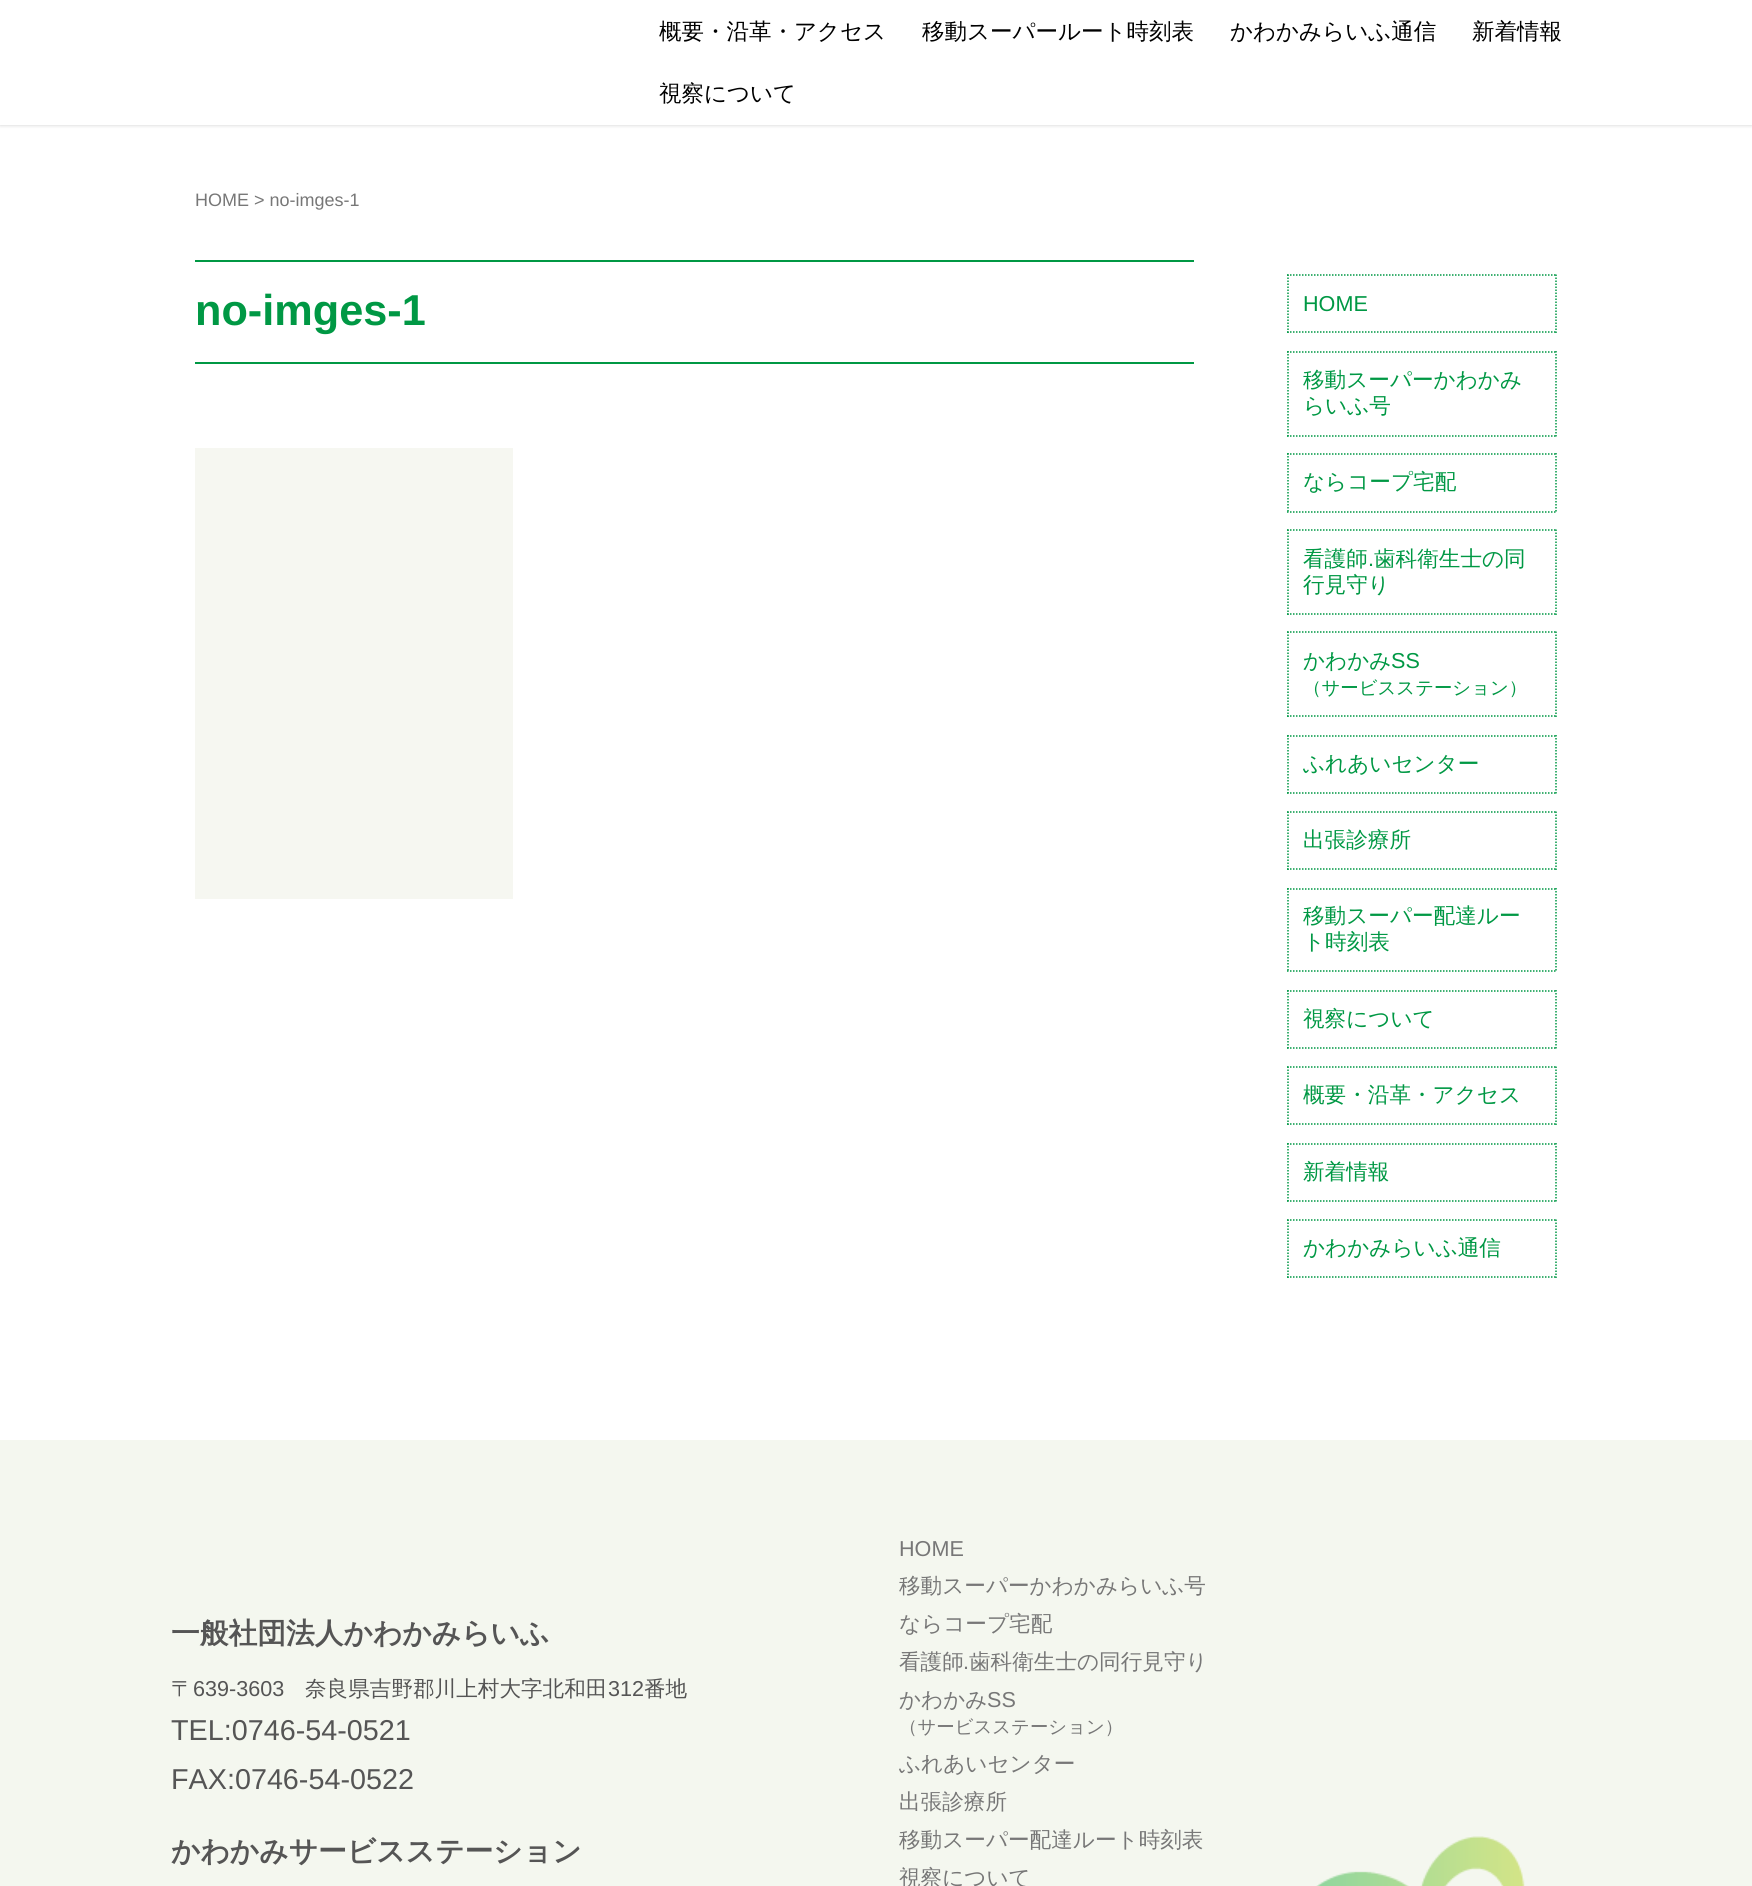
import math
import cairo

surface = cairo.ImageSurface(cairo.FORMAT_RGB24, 1752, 1886)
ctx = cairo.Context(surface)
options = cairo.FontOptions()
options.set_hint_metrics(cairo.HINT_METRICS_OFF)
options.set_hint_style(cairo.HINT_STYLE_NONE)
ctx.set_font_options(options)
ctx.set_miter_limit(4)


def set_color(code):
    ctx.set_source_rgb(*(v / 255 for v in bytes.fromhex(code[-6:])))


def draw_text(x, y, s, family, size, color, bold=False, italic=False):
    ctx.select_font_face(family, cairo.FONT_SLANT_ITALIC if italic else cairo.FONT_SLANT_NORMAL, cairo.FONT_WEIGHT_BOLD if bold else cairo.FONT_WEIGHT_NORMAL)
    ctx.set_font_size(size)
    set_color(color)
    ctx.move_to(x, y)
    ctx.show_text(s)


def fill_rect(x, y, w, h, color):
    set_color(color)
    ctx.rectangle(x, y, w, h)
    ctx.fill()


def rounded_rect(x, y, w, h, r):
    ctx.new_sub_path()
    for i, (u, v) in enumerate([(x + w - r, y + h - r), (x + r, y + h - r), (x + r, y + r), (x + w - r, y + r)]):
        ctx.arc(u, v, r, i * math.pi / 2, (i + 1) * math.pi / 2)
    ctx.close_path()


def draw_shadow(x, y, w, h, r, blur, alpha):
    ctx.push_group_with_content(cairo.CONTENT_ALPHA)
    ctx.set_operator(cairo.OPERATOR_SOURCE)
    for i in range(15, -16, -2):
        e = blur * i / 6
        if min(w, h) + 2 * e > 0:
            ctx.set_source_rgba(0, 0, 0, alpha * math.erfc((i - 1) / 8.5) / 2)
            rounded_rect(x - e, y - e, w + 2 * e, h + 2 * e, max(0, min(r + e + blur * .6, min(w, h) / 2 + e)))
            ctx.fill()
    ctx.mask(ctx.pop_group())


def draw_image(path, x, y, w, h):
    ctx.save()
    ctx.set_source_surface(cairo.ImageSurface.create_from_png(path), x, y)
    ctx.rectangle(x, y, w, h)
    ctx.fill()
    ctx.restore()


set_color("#ffffff")
ctx.paint()
set_color("#000000")
draw_shadow(0, 0, 1752, 125, 0, 2, 0.2)
fill_rect(0, 0, 1752, 125, "#ffffff")
draw_text(659, 39, "概要・沿革・アクセス", "WenQuanYi Zen Hei Medium", 22.5, "#000000")
draw_text(922, 39, "移動スーパールート時刻表", "WenQuanYi Zen Hei Medium", 22.5, "#000000")
draw_text(1230, 39, "かわかみらいふ通信", "WenQuanYi Zen Hei Medium", 22.5, "#000000")
draw_text(1472, 39, "新着情報", "WenQuanYi Zen Hei Medium", 22.5, "#000000")
draw_text(659, 101, "視察について", "WenQuanYi Zen Hei Medium", 22.5, "#000000")
draw_text(195, 206, "HOME > no-imges-1", "Liberation Sans", 18, "#777777")
fill_rect(195, 260, 999, 2, "#009844")
fill_rect(195, 362, 999, 2, "#009844")
draw_text(195, 325, "no-imges-1", "Liberation Sans", 43.25, "#009844", bold=True)
fill_rect(195, 448, 318, 451, "#f6f7f1")
ctx.new_path()
ctx.move_to(1287, 275)
ctx.line_to(1557, 275)
set_color("#009844")
ctx.set_line_width(1.5)
ctx.set_dash([1.5, 1.5])
ctx.stroke()
ctx.new_path()
ctx.move_to(1556, 274.5)
ctx.line_to(1556, 333)
ctx.stroke()
ctx.new_path()
ctx.move_to(1287, 332)
ctx.line_to(1557, 332)
ctx.stroke()
ctx.new_path()
ctx.move_to(1288, 274.5)
ctx.line_to(1288, 333)
ctx.stroke()
draw_text(1303, 311, "HOME", "Liberation Sans", 21.6, "#009844")
ctx.new_path()
ctx.move_to(1287, 352)
ctx.line_to(1557, 352)
ctx.stroke()
ctx.new_path()
ctx.move_to(1556, 351)
ctx.line_to(1556, 436.5)
ctx.stroke()
ctx.new_path()
ctx.move_to(1287, 436)
ctx.line_to(1557, 436)
ctx.stroke()
ctx.new_path()
ctx.move_to(1288, 351)
ctx.line_to(1288, 436.5)
ctx.stroke()
draw_text(1303, 387, "移動スーパーかわかみ", "WenQuanYi Zen Hei Medium", 21.6, "#009844")
draw_text(1303, 413, "らいふ号", "WenQuanYi Zen Hei Medium", 21.6, "#009844")
ctx.new_path()
ctx.move_to(1287, 454)
ctx.line_to(1557, 454)
ctx.stroke()
ctx.new_path()
ctx.move_to(1556, 453)
ctx.line_to(1556, 513)
ctx.stroke()
ctx.new_path()
ctx.move_to(1287, 512)
ctx.line_to(1557, 512)
ctx.stroke()
ctx.new_path()
ctx.move_to(1288, 453)
ctx.line_to(1288, 513)
ctx.stroke()
draw_text(1303, 489, "ならコープ宅配", "WenQuanYi Zen Hei Medium", 21.6, "#009844")
ctx.new_path()
ctx.move_to(1287, 530)
ctx.line_to(1557, 530)
ctx.stroke()
ctx.new_path()
ctx.move_to(1556, 529.5)
ctx.line_to(1556, 615)
ctx.stroke()
ctx.new_path()
ctx.move_to(1287, 614)
ctx.line_to(1557, 614)
ctx.stroke()
ctx.new_path()
ctx.move_to(1288, 529.5)
ctx.line_to(1288, 615)
ctx.stroke()
draw_text(1303, 566, "看護師", "WenQuanYi Zen Hei Medium", 21.6, "#009844")
draw_text(1368, 566, ".", "Liberation Sans", 21.6, "#009844")
draw_text(1374, 566, "歯科衛生士の同", "WenQuanYi Zen Hei Medium", 21.6, "#009844")
draw_text(1303, 592, "行見守り", "WenQuanYi Zen Hei Medium", 21.6, "#009844")
ctx.new_path()
ctx.move_to(1287, 632)
ctx.line_to(1557, 632)
ctx.stroke()
ctx.new_path()
ctx.move_to(1556, 631.5)
ctx.line_to(1556, 717)
ctx.stroke()
ctx.new_path()
ctx.move_to(1287, 716)
ctx.line_to(1557, 716)
ctx.stroke()
ctx.new_path()
ctx.move_to(1288, 631.5)
ctx.line_to(1288, 717)
ctx.stroke()
draw_text(1303, 668, "かわかみ", "WenQuanYi Zen Hei Medium", 21.6, "#009844")
draw_text(1391, 668, "SS", "Liberation Sans", 21.6, "#009844")
draw_text(1303, 694, "（サービスステーション）", "WenQuanYi Zen Hei Medium", 18.4, "#009844")
ctx.new_path()
ctx.move_to(1287, 736)
ctx.line_to(1557, 736)
ctx.stroke()
ctx.new_path()
ctx.move_to(1556, 735)
ctx.line_to(1556, 793.5)
ctx.stroke()
ctx.new_path()
ctx.move_to(1287, 793)
ctx.line_to(1557, 793)
ctx.stroke()
ctx.new_path()
ctx.move_to(1288, 735)
ctx.line_to(1288, 793.5)
ctx.stroke()
draw_text(1303, 771, "ふれあいセンター", "WenQuanYi Zen Hei Medium", 21.6, "#009844")
ctx.new_path()
ctx.move_to(1287, 812)
ctx.line_to(1557, 812)
ctx.stroke()
ctx.new_path()
ctx.move_to(1556, 811.5)
ctx.line_to(1556, 870)
ctx.stroke()
ctx.new_path()
ctx.move_to(1287, 869)
ctx.line_to(1557, 869)
ctx.stroke()
ctx.new_path()
ctx.move_to(1288, 811.5)
ctx.line_to(1288, 870)
ctx.stroke()
draw_text(1303, 847, "出張診療所", "WenQuanYi Zen Hei Medium", 21.6, "#009844")
ctx.new_path()
ctx.move_to(1287, 889)
ctx.line_to(1557, 889)
ctx.stroke()
ctx.new_path()
ctx.move_to(1556, 888)
ctx.line_to(1556, 972)
ctx.stroke()
ctx.new_path()
ctx.move_to(1287, 971)
ctx.line_to(1557, 971)
ctx.stroke()
ctx.new_path()
ctx.move_to(1288, 888)
ctx.line_to(1288, 972)
ctx.stroke()
draw_text(1303, 923, "移動スーパー配達ルー", "WenQuanYi Zen Hei Medium", 21.6, "#009844")
draw_text(1303, 949, "ト時刻表", "WenQuanYi Zen Hei Medium", 21.6, "#009844")
ctx.new_path()
ctx.move_to(1287, 991)
ctx.line_to(1557, 991)
ctx.stroke()
ctx.new_path()
ctx.move_to(1556, 990)
ctx.line_to(1556, 1048.5)
ctx.stroke()
ctx.new_path()
ctx.move_to(1287, 1048)
ctx.line_to(1557, 1048)
ctx.stroke()
ctx.new_path()
ctx.move_to(1288, 990)
ctx.line_to(1288, 1048.5)
ctx.stroke()
draw_text(1303, 1026, "視察について", "WenQuanYi Zen Hei Medium", 21.6, "#009844")
ctx.new_path()
ctx.move_to(1287, 1067)
ctx.line_to(1557, 1067)
ctx.stroke()
ctx.new_path()
ctx.move_to(1556, 1066.5)
ctx.line_to(1556, 1125)
ctx.stroke()
ctx.new_path()
ctx.move_to(1287, 1124)
ctx.line_to(1557, 1124)
ctx.stroke()
ctx.new_path()
ctx.move_to(1288, 1066.5)
ctx.line_to(1288, 1125)
ctx.stroke()
draw_text(1303, 1102, "概要・沿革・アクセス", "WenQuanYi Zen Hei Medium", 21.6, "#009844")
ctx.new_path()
ctx.move_to(1287, 1144)
ctx.line_to(1557, 1144)
ctx.stroke()
ctx.new_path()
ctx.move_to(1556, 1143)
ctx.line_to(1556, 1201.5)
ctx.stroke()
ctx.new_path()
ctx.move_to(1287, 1201)
ctx.line_to(1557, 1201)
ctx.stroke()
ctx.new_path()
ctx.move_to(1288, 1143)
ctx.line_to(1288, 1201.5)
ctx.stroke()
draw_text(1303, 1179, "新着情報", "WenQuanYi Zen Hei Medium", 21.6, "#009844")
ctx.new_path()
ctx.move_to(1287, 1220)
ctx.line_to(1557, 1220)
ctx.stroke()
ctx.new_path()
ctx.move_to(1556, 1219.5)
ctx.line_to(1556, 1278)
ctx.stroke()
ctx.new_path()
ctx.move_to(1287, 1277)
ctx.line_to(1557, 1277)
ctx.stroke()
ctx.new_path()
ctx.move_to(1288, 1219.5)
ctx.line_to(1288, 1278)
ctx.stroke()
draw_text(1303, 1255, "かわかみらいふ通信", "WenQuanYi Zen Hei Medium", 21.6, "#009844")
fill_rect(0, 1440, 1752, 446, "#f4f7ef")
draw_image("assets/img1.png", 1316, 1836, 209, 50)
draw_text(171, 1643, "一般社団法人かわかみらいふ", "WenQuanYi Zen Hei", 28.75, "#555555", bold=True)
draw_text(171, 1696, "〒", "WenQuanYi Zen Hei Medium", 21.6, "#555555")
draw_text(193, 1696, "639-3603", "Liberation Sans", 21.6, "#555555")
draw_text(305, 1696, "奈良県吉野郡川上村大字北和田", "WenQuanYi Zen Hei Medium", 21.6, "#555555")
draw_text(608, 1696, "312", "Liberation Sans", 21.6, "#555555")
draw_text(644, 1696, "番地", "WenQuanYi Zen Hei Medium", 21.6, "#555555")
draw_text(171, 1740, "TEL:0746-54-0521", "Liberation Sans", 28.75, "#555555")
draw_text(171, 1789, "FAX:0746-54-0522", "Liberation Sans", 28.75, "#555555")
draw_text(171, 1861, "かわかみサービスステーション", "WenQuanYi Zen Hei", 28.75, "#555555", bold=True)
draw_text(899, 1556, "HOME", "Liberation Sans", 21.6, "#777777")
draw_text(899, 1593, "移動スーパーかわかみらいふ号", "WenQuanYi Zen Hei Medium", 21.6, "#777777")
draw_text(899, 1631, "ならコープ宅配", "WenQuanYi Zen Hei Medium", 21.6, "#777777")
draw_text(899, 1669, "看護師", "WenQuanYi Zen Hei Medium", 21.6, "#777777")
draw_text(963, 1669, ".", "Liberation Sans", 21.6, "#777777")
draw_text(969, 1669, "歯科衛生士の同行見守り", "WenQuanYi Zen Hei Medium", 21.6, "#777777")
draw_text(899, 1707, "かわかみ", "WenQuanYi Zen Hei Medium", 21.6, "#777777")
draw_text(987, 1707, "SS", "Liberation Sans", 21.6, "#777777")
draw_text(899, 1733, "（サービスステーション）", "WenQuanYi Zen Hei Medium", 18.4, "#777777")
draw_text(899, 1771, "ふれあいセンター", "WenQuanYi Zen Hei Medium", 21.6, "#777777")
draw_text(899, 1809, "出張診療所", "WenQuanYi Zen Hei Medium", 21.6, "#777777")
draw_text(899, 1847, "移動スーパー配達ルート時刻表", "WenQuanYi Zen Hei Medium", 21.6, "#777777")
draw_text(899, 1885, "視察について", "WenQuanYi Zen Hei Medium", 21.6, "#777777")
surface.write_to_png("output.png")
